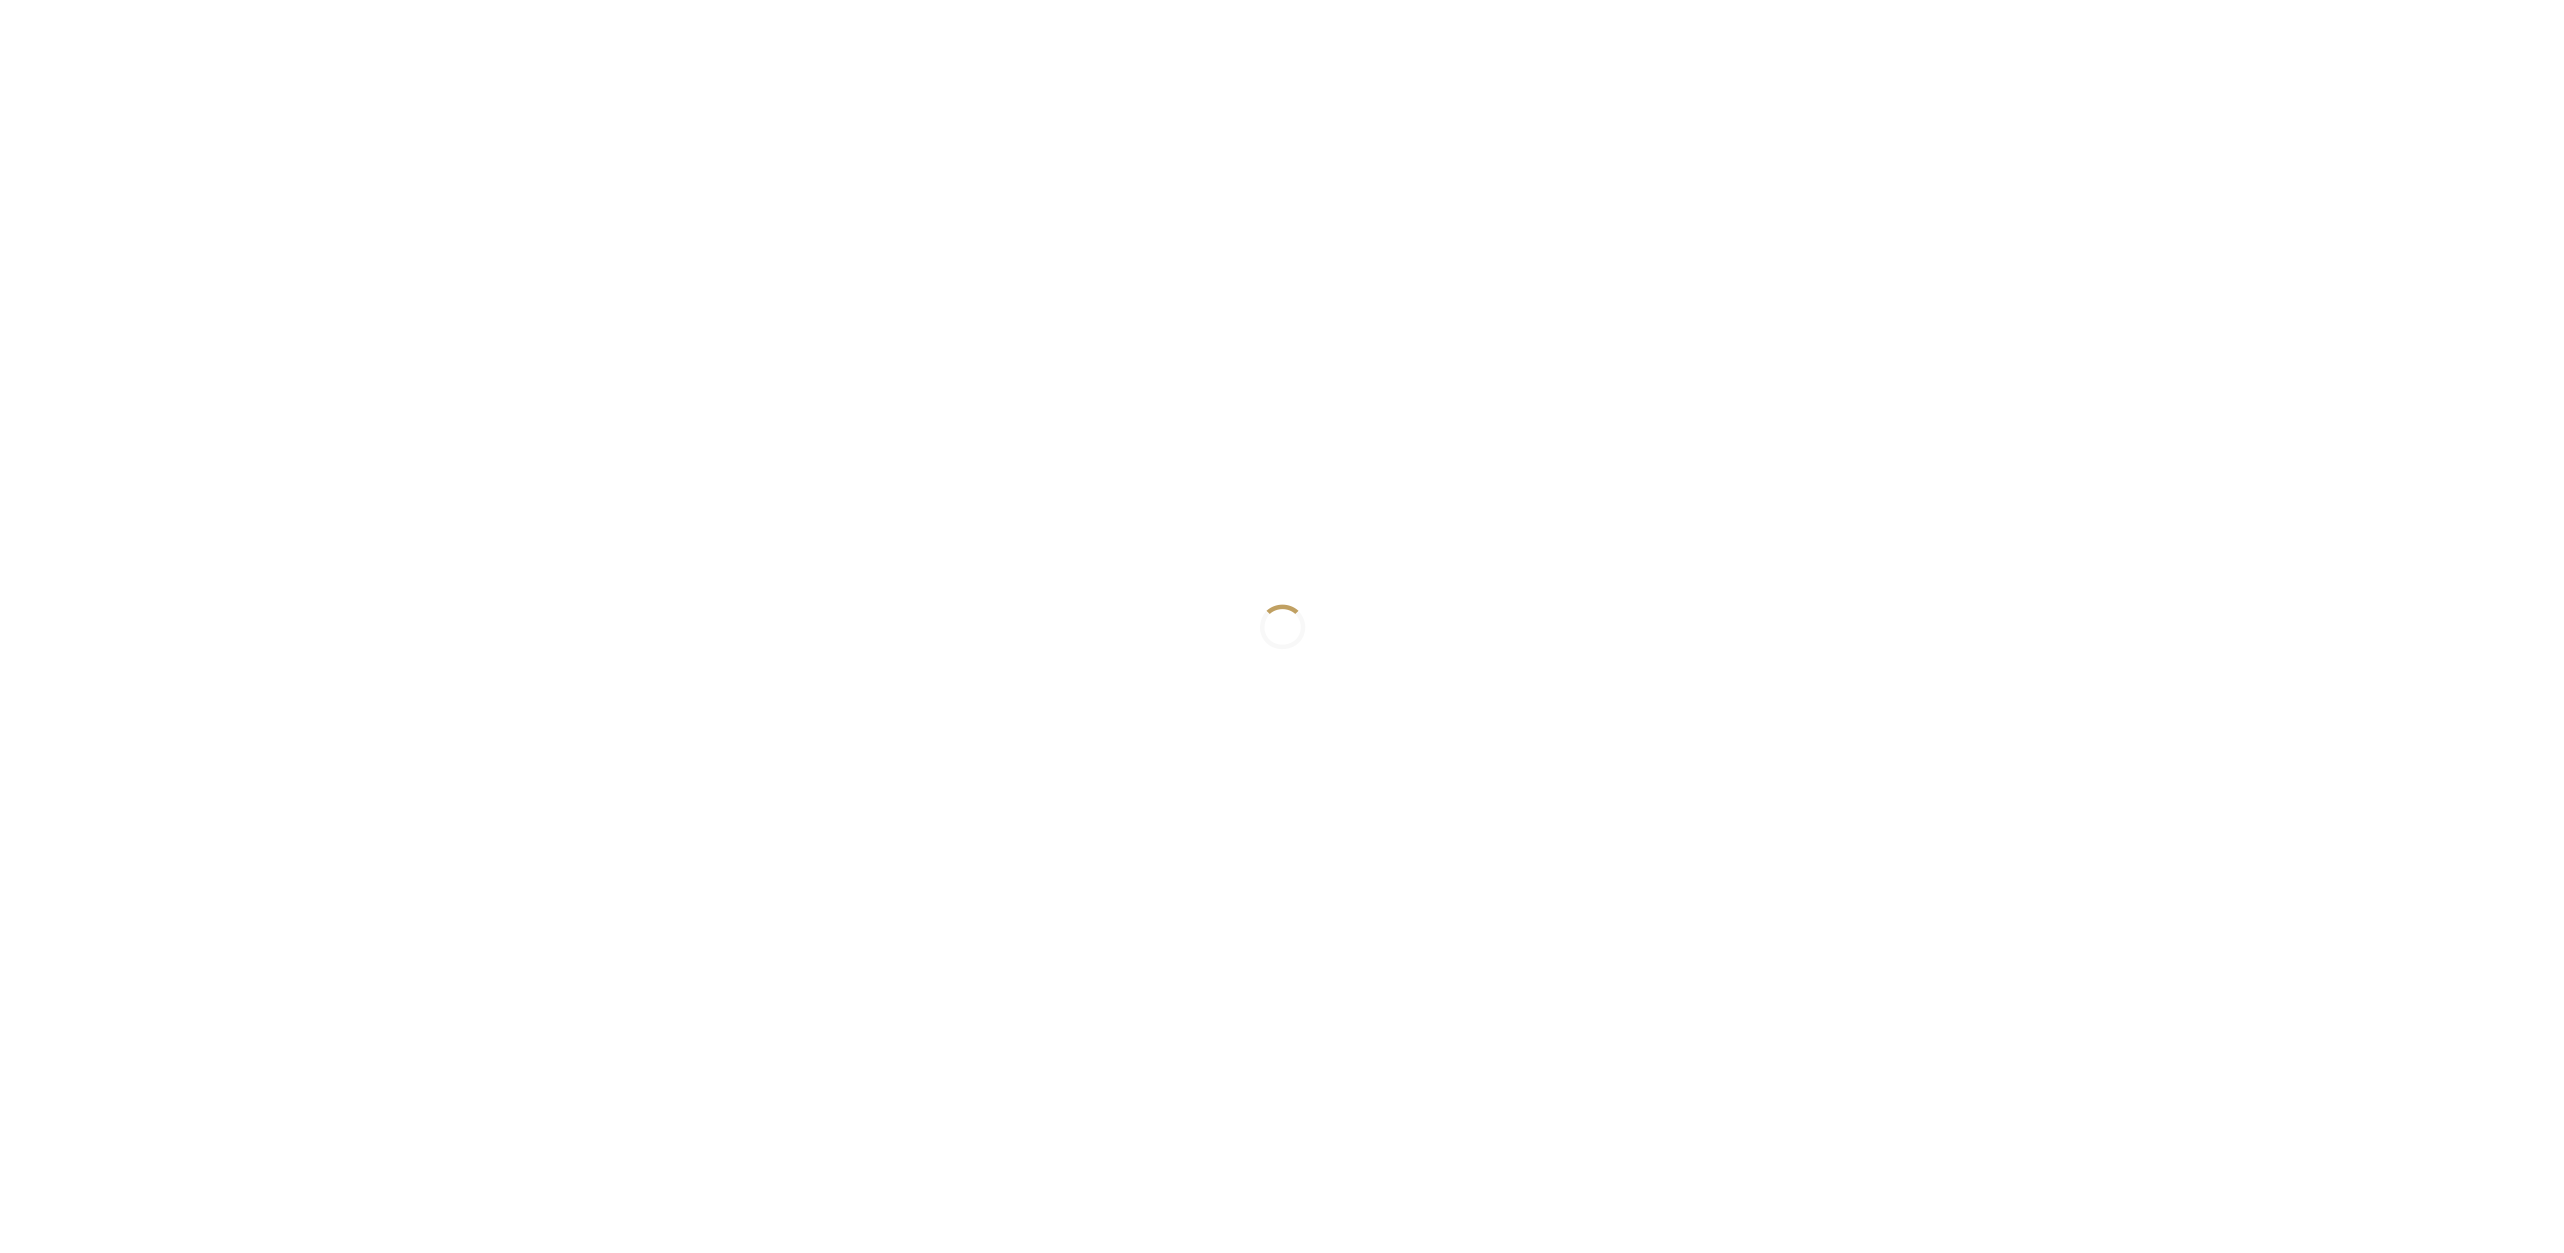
import math
import cairo

surface = cairo.ImageSurface(cairo.FORMAT_RGB24, 2564, 1253)
ctx = cairo.Context(surface)
options = cairo.FontOptions()
options.set_hint_metrics(cairo.HINT_METRICS_OFF)
options.set_hint_style(cairo.HINT_STYLE_NONE)
ctx.set_font_options(options)
ctx.set_miter_limit(4)


def set_color(code):
    ctx.set_source_rgb(*(v / 255 for v in bytes.fromhex(code[-6:])))


set_color("#ffffff")
ctx.paint()
ctx.new_path()
ctx.move_to(1268, 612.5)
ctx.curve_to(1276, 605, 1289, 605, 1297, 612.5)
set_color("#c0a062")
ctx.set_line_width(4.5)
ctx.stroke()
ctx.new_path()
ctx.move_to(1297, 612.5)
ctx.curve_to(1300.5, 616.5, 1303, 621.5, 1303, 627)
ctx.curve_to(1303, 651, 1267.5, 654.5, 1262.5, 631)
ctx.curve_to(1261.5, 624.5, 1263.5, 617.5, 1268, 612.5)
set_color("#f8f8f8")
ctx.stroke()
surface.write_to_png("output.png")
